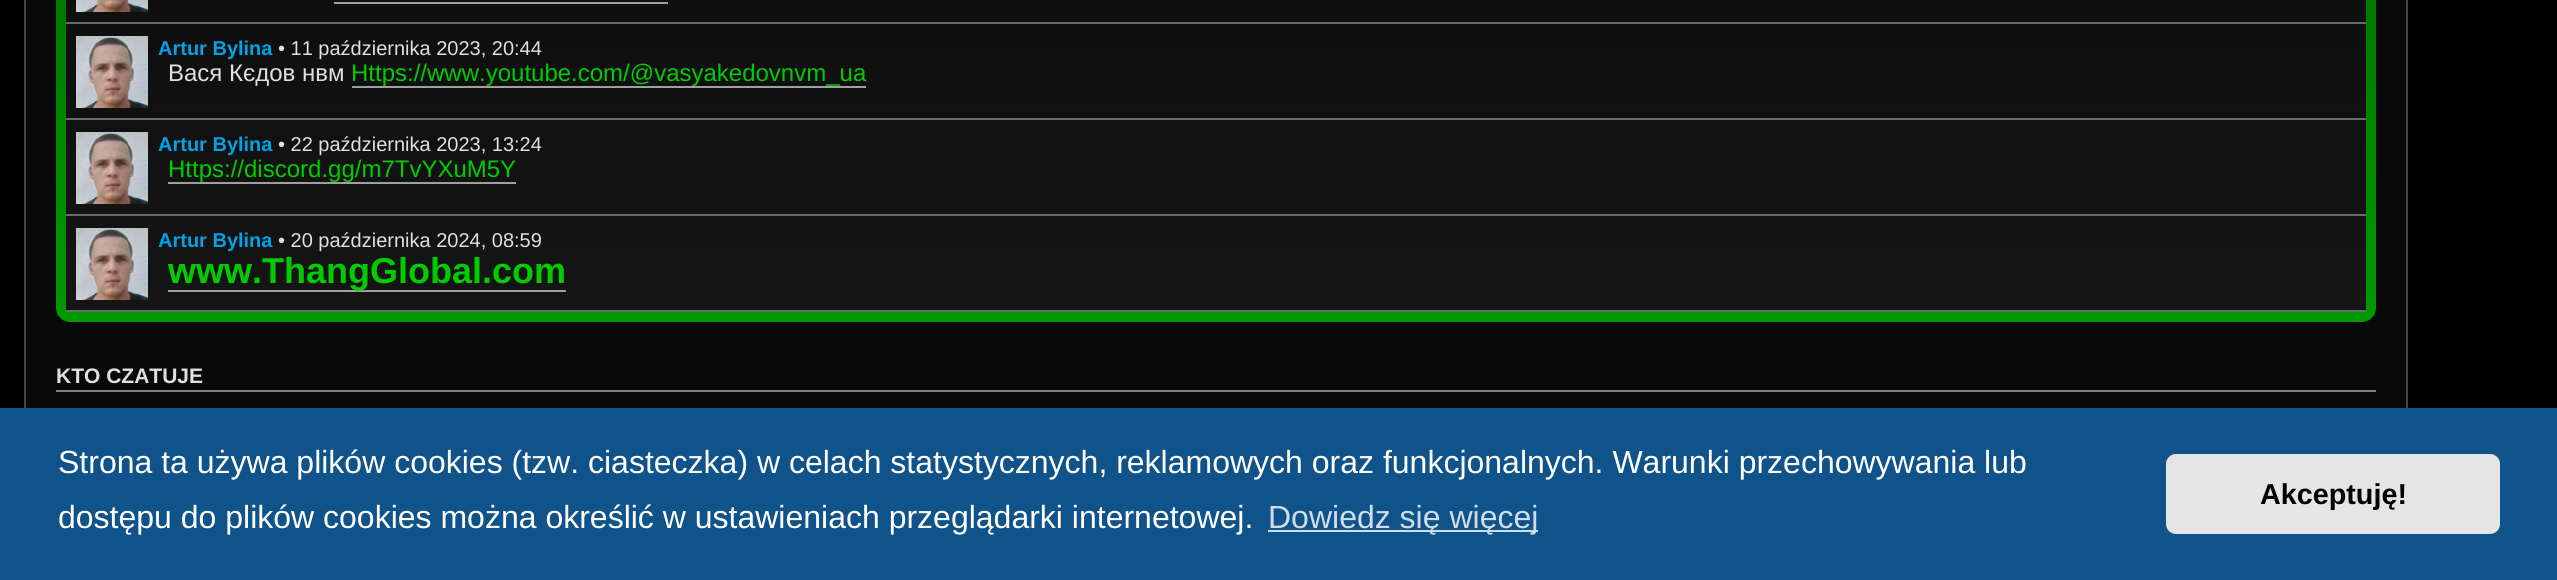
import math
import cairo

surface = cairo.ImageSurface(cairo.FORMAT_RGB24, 2557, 580)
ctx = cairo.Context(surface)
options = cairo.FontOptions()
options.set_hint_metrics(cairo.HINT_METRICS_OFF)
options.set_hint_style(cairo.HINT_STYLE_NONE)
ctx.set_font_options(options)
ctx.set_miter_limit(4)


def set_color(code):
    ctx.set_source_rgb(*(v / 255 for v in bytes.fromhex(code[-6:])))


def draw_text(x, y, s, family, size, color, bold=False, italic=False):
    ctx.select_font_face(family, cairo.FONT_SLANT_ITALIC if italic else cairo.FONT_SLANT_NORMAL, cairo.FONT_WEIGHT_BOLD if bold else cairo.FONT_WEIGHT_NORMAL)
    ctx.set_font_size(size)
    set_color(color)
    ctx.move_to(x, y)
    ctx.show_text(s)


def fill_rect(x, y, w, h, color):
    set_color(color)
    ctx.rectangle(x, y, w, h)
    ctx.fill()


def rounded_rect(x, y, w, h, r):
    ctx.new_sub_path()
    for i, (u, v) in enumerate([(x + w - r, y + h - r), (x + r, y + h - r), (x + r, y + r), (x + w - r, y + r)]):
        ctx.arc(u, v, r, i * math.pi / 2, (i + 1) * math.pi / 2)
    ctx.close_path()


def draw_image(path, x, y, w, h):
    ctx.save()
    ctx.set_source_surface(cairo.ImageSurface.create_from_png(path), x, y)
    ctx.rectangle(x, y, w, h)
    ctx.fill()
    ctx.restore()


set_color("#000000")
ctx.paint()
fill_rect(26, 0, 2380, 408, "#090909")
ctx.rectangle(25, -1, 2382, 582)
set_color("#454545")
ctx.stroke()
gradient = cairo.LinearGradient(1216, -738, 1216, 322)
gradient.add_color_stop_rgba(0, 0, 0.2, 0, 1)
gradient.add_color_stop_rgba(1, 0, 0.6, 0, 1)
ctx.set_source(gradient)
rounded_rect(56, -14, 2320, 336, 14)
ctx.fill()
gradient = cairo.LinearGradient(1216, -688, 1216, 312)
gradient.add_color_stop_rgba(0, 0, 0, 0, 1)
gradient.add_color_stop_rgba(1, 0.082, 0.082, 0.082, 1)
ctx.set_source(gradient)
ctx.rectangle(66, 0, 2300, 310)
ctx.fill()
fill_rect(66, 22, 2300, 2, "#696969")
draw_image("assets/img1.png", 76, 0, 72, 12)
fill_rect(334, 2, 334, 2, "#a0a0a0")
fill_rect(66, 118, 2300, 2, "#696969")
draw_image("assets/img2.png", 76, 36, 72, 72)
draw_text(158, 55, "Artur Bylina", "Liberation Sans", 20, "#00a2e8", bold=True)
draw_text(278, 55, "• 11 października 2023, 20:44", "Liberation Sans", 20, "#e0e0e0")
draw_text(168, 81, "Вася Кєдов нвм", "Liberation Sans", 24, "#e0e0e0")
draw_text(351, 81, "Https://www.youtube.com/@vasyakedovnvm_ua", "Liberation Sans", 24, "#00cc00")
fill_rect(352, 86, 514, 2, "#a0a0a0")
fill_rect(66, 214, 2300, 2, "#696969")
draw_image("assets/img2.png", 76, 132, 72, 72)
draw_text(158, 151, "Artur Bylina", "Liberation Sans", 20, "#00a2e8", bold=True)
draw_text(278, 151, "• 22 października 2023, 13:24", "Liberation Sans", 20, "#e0e0e0")
draw_text(168, 177, "Https://discord.gg/m7TvYXuM5Y", "Liberation Sans", 24, "#00cc00")
fill_rect(168, 182, 348, 2, "#a0a0a0")
fill_rect(66, 310, 2300, 2, "#696969")
draw_image("assets/img2.png", 76, 228, 72, 72)
draw_text(158, 247, "Artur Bylina", "Liberation Sans", 20, "#00a2e8", bold=True)
draw_text(278, 247, "• 20 października 2024, 08:59", "Liberation Sans", 20, "#e0e0e0")
fill_rect(168, 290, 398, 2, "#a0a0a0")
draw_text(168, 283, "www.ThangGlobal.com", "Liberation Sans", 36, "#00cc00", bold=True)
fill_rect(56, 390, 2320, 2, "#808080")
draw_text(56, 383, "KTO CZATUJE", "Liberation Sans", 21, "#e0e0e0", bold=True)
fill_rect(0, 408, 2557, 172, "#0f538a")
draw_text(58, 473, "Strona ta używa plików cookies (tzw. ciasteczka) w celach statystycznych, reklamowych oraz funkcjonalnych. Warunki przechowywania lub", "Liberation Sans", 32, "#ffffff")
draw_text(58, 528, "dostępu do plików cookies można określić w ustawieniach przeglądarki internetowej.", "Liberation Sans", 32, "#ffffff")
fill_rect(1268, 530, 270, 2, "#cfdde8")
draw_text(1268, 528, "Dowiedz się więcej", "Liberation Sans", 32, "#cfdde8")
set_color("#e5e5e5")
rounded_rect(2166, 454, 334, 80, 10)
ctx.fill()
draw_text(2260, 504, "Akceptuję!", "Liberation Sans", 28.75, "#000000", bold=True)
surface.write_to_png("output.png")
